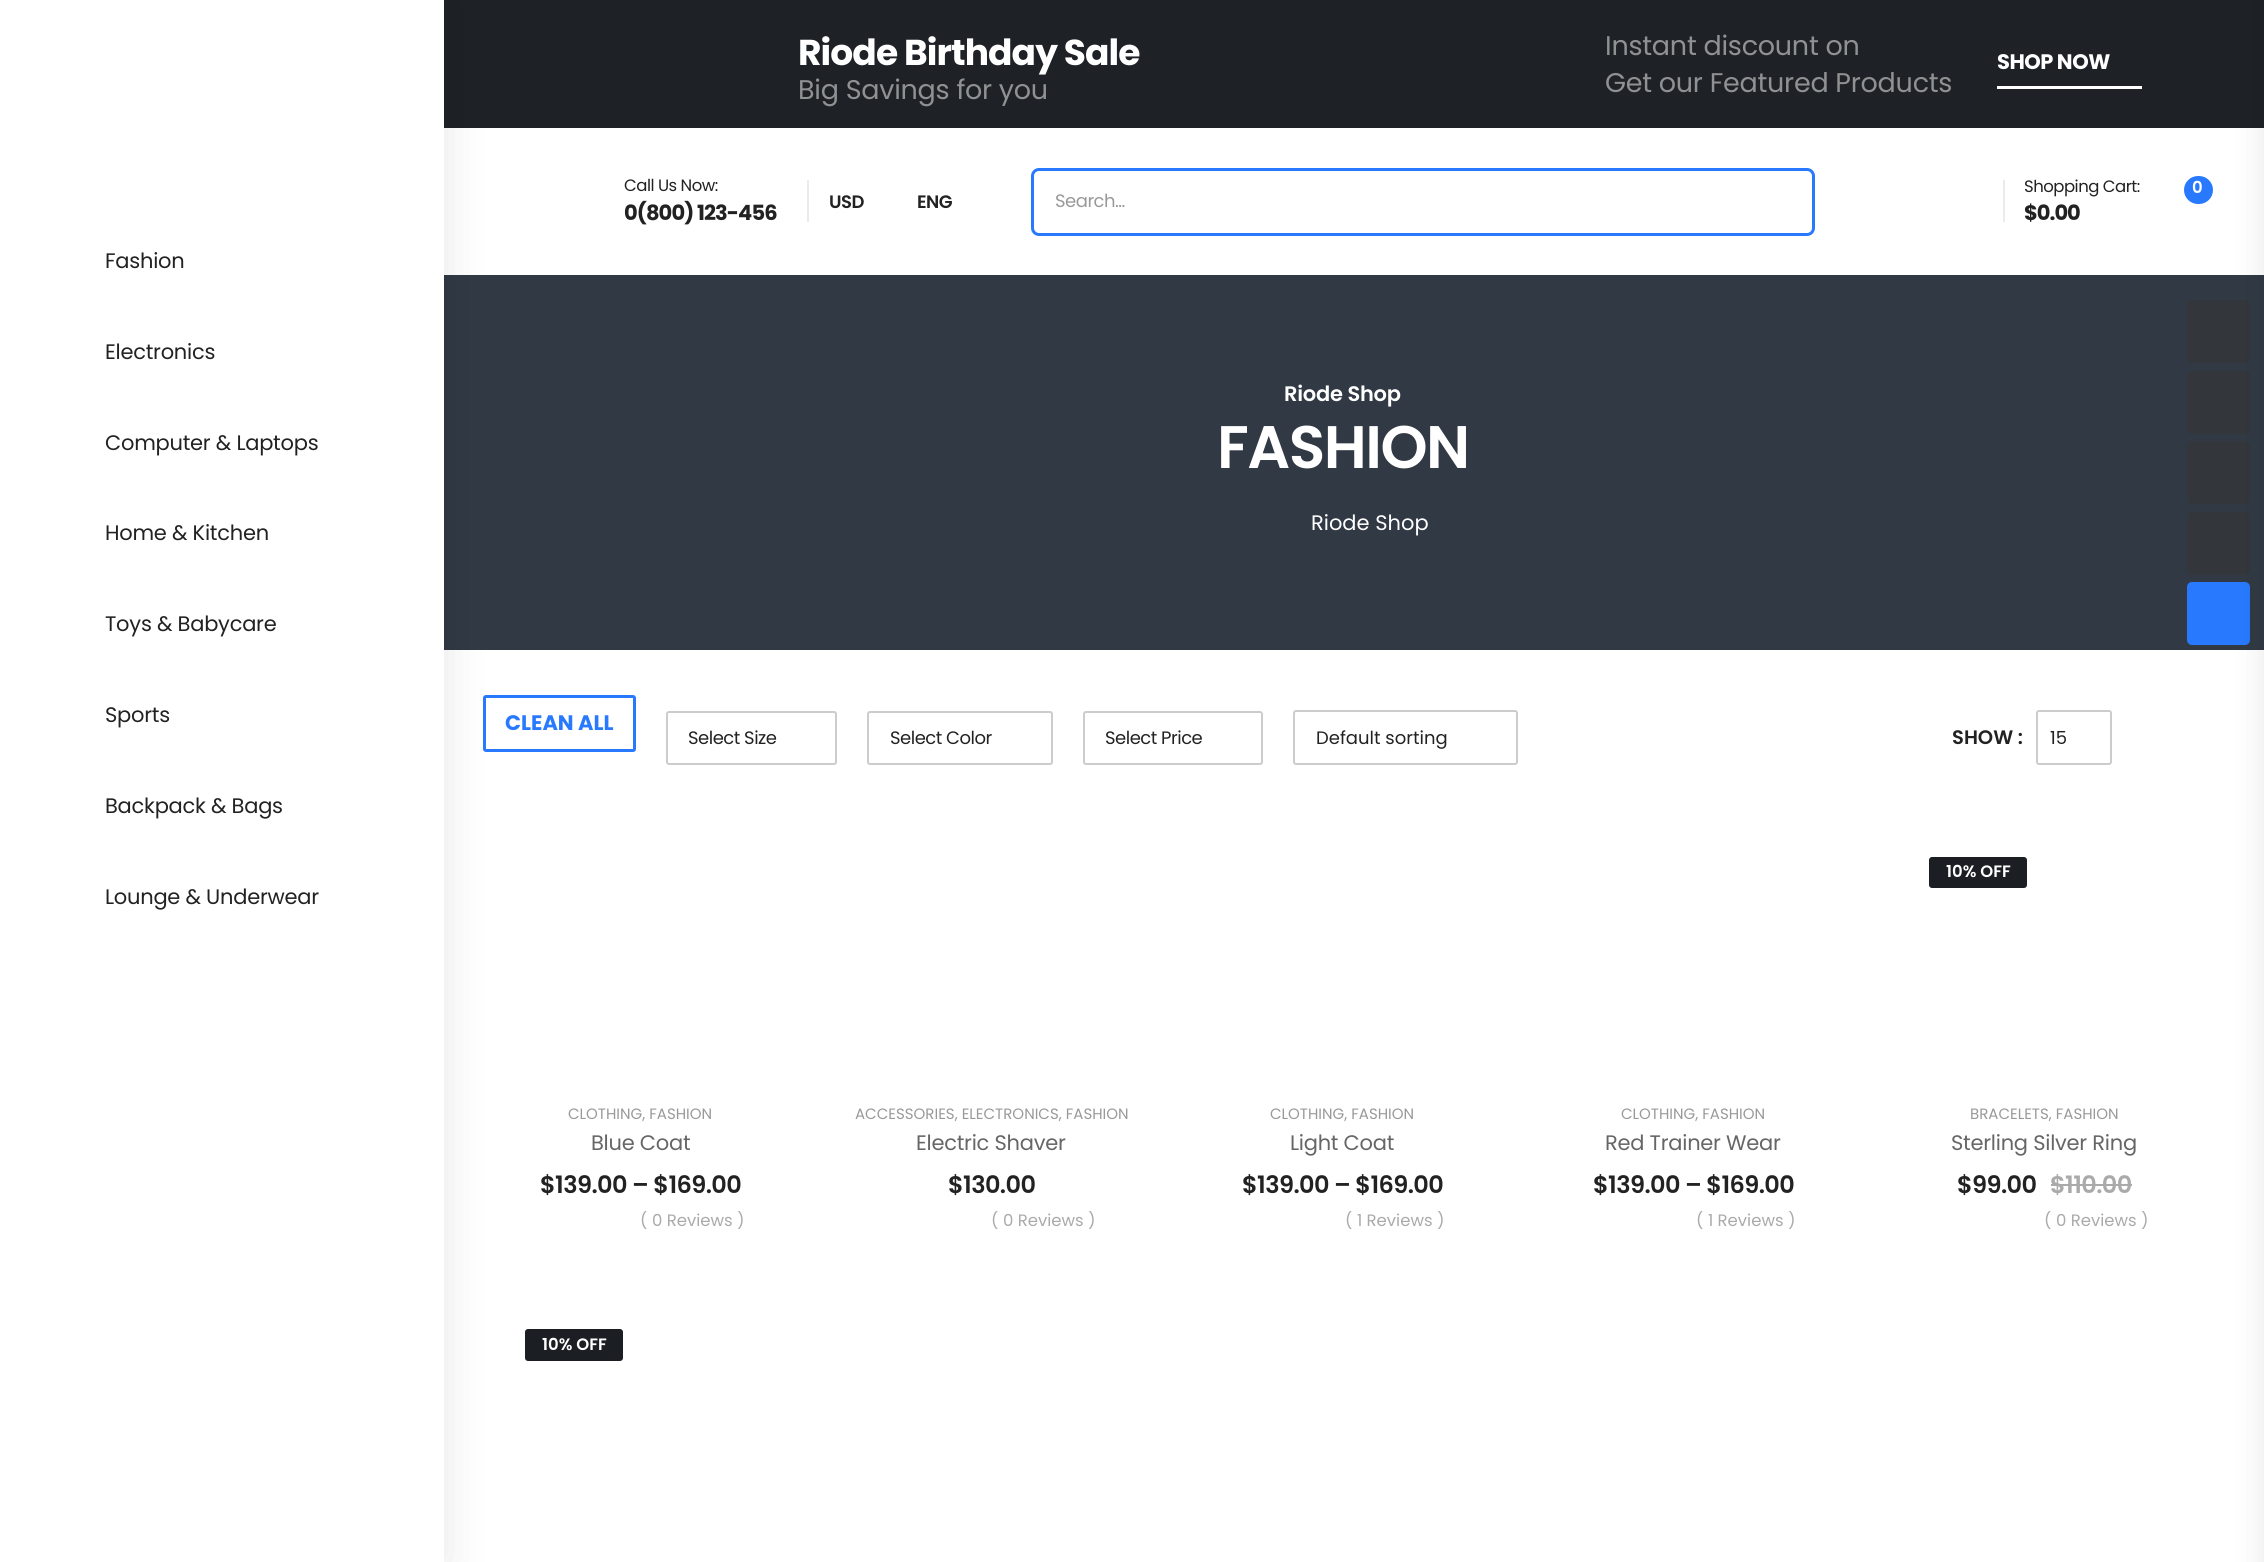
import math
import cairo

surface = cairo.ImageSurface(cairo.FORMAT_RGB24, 2264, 1562)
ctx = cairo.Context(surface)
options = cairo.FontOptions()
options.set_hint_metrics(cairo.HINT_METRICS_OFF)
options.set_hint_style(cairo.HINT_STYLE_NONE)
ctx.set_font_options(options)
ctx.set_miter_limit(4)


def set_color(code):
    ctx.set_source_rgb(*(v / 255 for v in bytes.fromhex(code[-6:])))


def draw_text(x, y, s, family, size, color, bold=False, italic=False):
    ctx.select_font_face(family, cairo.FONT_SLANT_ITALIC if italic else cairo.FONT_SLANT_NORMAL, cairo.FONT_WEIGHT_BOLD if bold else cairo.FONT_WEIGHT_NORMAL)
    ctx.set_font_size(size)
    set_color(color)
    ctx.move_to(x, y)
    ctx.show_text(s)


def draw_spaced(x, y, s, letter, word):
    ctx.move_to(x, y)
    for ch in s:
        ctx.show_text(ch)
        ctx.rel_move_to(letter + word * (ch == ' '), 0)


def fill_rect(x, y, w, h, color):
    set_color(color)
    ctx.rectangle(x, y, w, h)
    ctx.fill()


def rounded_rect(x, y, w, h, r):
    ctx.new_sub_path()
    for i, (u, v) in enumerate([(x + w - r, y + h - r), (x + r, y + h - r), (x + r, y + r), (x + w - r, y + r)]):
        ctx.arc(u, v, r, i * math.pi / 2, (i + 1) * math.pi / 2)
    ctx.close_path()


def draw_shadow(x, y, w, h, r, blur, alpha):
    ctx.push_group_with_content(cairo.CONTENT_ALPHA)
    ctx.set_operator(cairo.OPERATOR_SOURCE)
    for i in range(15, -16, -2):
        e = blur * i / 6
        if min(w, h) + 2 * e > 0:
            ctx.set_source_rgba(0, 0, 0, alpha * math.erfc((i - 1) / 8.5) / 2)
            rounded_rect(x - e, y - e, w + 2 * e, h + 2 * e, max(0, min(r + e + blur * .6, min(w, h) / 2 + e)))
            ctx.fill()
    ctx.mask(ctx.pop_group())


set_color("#ffffff")
ctx.paint()
fill_rect(444, 0, 1820, 128, "#1e2227")
ctx.select_font_face("Poppins", cairo.FONT_SLANT_NORMAL, cairo.FONT_WEIGHT_BOLD)
ctx.set_font_size(36)
set_color("#ffffff")
draw_spaced(798, 65, "Riode Birthday Sale", -0.9, 0)
ctx.select_font_face("Poppins")
ctx.set_font_size(27)
set_color("#8f9193")
draw_spaced(798, 99, "Big Savings for you", -0.25, 0)
draw_spaced(1605, 55, "Instant discount on", -0.25, 0)
draw_spaced(1605, 92, "Get our Featured Products", -0.25, 0)
fill_rect(1997, 86, 145, 3, "#ffffff")
ctx.select_font_face("Poppins", cairo.FONT_SLANT_NORMAL, cairo.FONT_WEIGHT_BOLD)
ctx.set_font_size(21)
draw_spaced(1997, 69, "SHOP NOW", -0.5, 0)
ctx.select_font_face("Poppins")
ctx.set_font_size(16.5)
set_color("#222222")
draw_spaced(624, 191, "Call Us Now:", -0.5, 0)
ctx.select_font_face("Poppins", cairo.FONT_SLANT_NORMAL, cairo.FONT_WEIGHT_BOLD)
ctx.set_font_size(21)
draw_spaced(624, 220, "0(800) 123-456", -0.9, 0)
fill_rect(807, 180, 2, 42, "#ebebeb")
ctx.select_font_face("Poppins SemiBold")
ctx.set_font_size(18)
set_color("#222222")
draw_spaced(829, 208, "USD", -0.5, 0)
draw_spaced(917, 208, "ENG", -0.5, 0)
rounded_rect(1032.5, 169.5, 781, 65, 6.5)
set_color("#2879fe")
ctx.set_line_width(3)
ctx.stroke()
ctx.select_font_face("Poppins")
set_color("#999999")
draw_spaced(1055, 207, "Search...", -0.5, 0)
fill_rect(2003, 180, 2, 42, "#ebebeb")
ctx.set_font_size(16.5)
set_color("#222222")
draw_spaced(2024, 192, "Shopping Cart:", -0.5, 0)
ctx.select_font_face("Poppins", cairo.FONT_SLANT_NORMAL, cairo.FONT_WEIGHT_BOLD)
ctx.set_font_size(21)
draw_spaced(2024, 220, "$0.00", -1, 0)
set_color("#2879fe")
rounded_rect(2184, 176, 29, 28, 14)
ctx.fill()
ctx.select_font_face("Poppins SemiBold")
ctx.set_font_size(16.5)
set_color("#ffffff")
draw_spaced(2192, 193, "0", -0.5, 0)
fill_rect(444, 275, 1820, 375, "#313944")
set_color("#33363b")
rounded_rect(2187, 300, 63, 63, 5)
ctx.fill()
rounded_rect(2187, 371, 63, 63, 5)
ctx.fill()
rounded_rect(2187, 441, 63, 63, 5)
ctx.fill()
rounded_rect(2187, 512, 63, 63, 5)
ctx.fill()
set_color("#2879fe")
rounded_rect(2187, 582, 63, 63, 5)
ctx.fill()
set_color("#000000")
draw_shadow(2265, 3, 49, 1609, 0, 16.5, 0.1)
rounded_rect(484.5, 696.5, 150, 54, 1.5)
set_color("#2879fe")
ctx.stroke()
set_color("#000000")
draw_shadow(0, 0, 444, 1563, 0, 22.5, 0.1)
fill_rect(0, 0, 444, 1562, "#ffffff")
ctx.select_font_face("Poppins")
ctx.set_font_size(21)
set_color("#222222")
draw_spaced(105, 268, "Fashion", -0.25, 0)
draw_spaced(105, 359, "Electronics", -0.25, 0)
draw_spaced(105, 450, "Computer & Laptops", -0.25, 0)
draw_spaced(105, 540, "Home & Kitchen", -0.25, 0)
draw_spaced(105, 631, "Toys & Babycare", -0.25, 0)
draw_spaced(105, 722, "Sports", -0.25, 0)
draw_spaced(105, 813, "Backpack & Bags", -0.25, 0)
draw_spaced(105, 904, "Lounge & Underwear", -0.25, 0)
draw_text(505, 730, "CLEAN ALL", "Poppins", 21, "#2879fe", bold=True)
rounded_rect(667, 712, 169, 52, 2)
set_color("#cccccc")
ctx.set_line_width(2)
ctx.stroke()
ctx.select_font_face("Poppins")
ctx.set_font_size(18)
set_color("#222222")
draw_spaced(688, 744, "Select Size", -0.5, 0)
rounded_rect(868, 712, 184, 52, 2)
set_color("#cccccc")
ctx.stroke()
set_color("#222222")
draw_spaced(890, 744, "Select Color", -0.5, 0)
rounded_rect(1084, 712, 178, 52, 2)
set_color("#cccccc")
ctx.stroke()
set_color("#222222")
draw_spaced(1105, 744, "Select Price", -0.5, 0)
rounded_rect(1294, 711, 223, 53, 2)
set_color("#cccccc")
ctx.stroke()
draw_text(1316, 744, "Default sorting", "Poppins", 18, "#222222")
draw_text(1952, 744, "SHOW :", "Poppins SemiBold", 19.5, "#222222")
rounded_rect(2037, 711, 74, 53, 2)
set_color("#cccccc")
ctx.stroke()
draw_text(2050, 744, "15", "Poppins", 18, "#222222")
draw_text(568, 1119, "CLOTHING, FASHION", "Poppins", 15, "#999999")
ctx.set_font_size(21)
set_color("#666666")
draw_spaced(591, 1150, "Blue Coat", -0.25, 0)
ctx.select_font_face("Poppins SemiBold")
ctx.set_font_size(24)
set_color("#222222")
draw_spaced(540, 1193, "$139.00 – $169.00", -0.6, 0)
ctx.save()
ctx.rectangle(641, 1211, 105, 18)
ctx.clip()
draw_text(640, 1226, "( 0 Reviews )", "Poppins", 16.5, "#aaaaaa")
ctx.restore()
draw_text(855, 1119, "ACCESSORIES, ELECTRONICS, FASHION", "Poppins", 15, "#999999")
ctx.set_font_size(21)
set_color("#666666")
draw_spaced(916, 1150, "Electric Shaver", -0.25, 0)
ctx.select_font_face("Poppins SemiBold")
ctx.set_font_size(24)
set_color("#222222")
draw_spaced(948, 1193, "$130.00", -0.6, 0)
ctx.save()
ctx.rectangle(992, 1211, 105, 18)
ctx.clip()
draw_text(991, 1226, "( 0 Reviews )", "Poppins", 16.5, "#aaaaaa")
ctx.restore()
draw_text(1270, 1119, "CLOTHING, FASHION", "Poppins", 15, "#999999")
ctx.set_font_size(21)
set_color("#666666")
draw_spaced(1290, 1150, "Light Coat", -0.25, 0)
ctx.select_font_face("Poppins SemiBold")
ctx.set_font_size(24)
set_color("#222222")
draw_spaced(1242, 1193, "$139.00 – $169.00", -0.6, 0)
ctx.save()
ctx.rectangle(1346, 1211, 99, 18)
ctx.clip()
draw_text(1345, 1226, "( 1 Reviews )", "Poppins", 16.5, "#aaaaaa")
ctx.restore()
draw_text(1621, 1119, "CLOTHING, FASHION", "Poppins", 15, "#999999")
ctx.set_font_size(21)
set_color("#666666")
draw_spaced(1605, 1150, "Red Trainer Wear", -0.25, 0)
ctx.select_font_face("Poppins SemiBold")
ctx.set_font_size(24)
set_color("#222222")
draw_spaced(1593, 1193, "$139.00 – $169.00", -0.6, 0)
ctx.save()
ctx.rectangle(1697, 1211, 99, 18)
ctx.clip()
draw_text(1696, 1226, "( 1 Reviews )", "Poppins", 16.5, "#aaaaaa")
ctx.restore()
set_color("#1b1f23")
rounded_rect(1929, 857, 98, 31, 3)
ctx.fill()
draw_text(1946, 877, "10% OFF", "Poppins SemiBold", 16.5, "#ffffff")
draw_text(1970, 1119, "BRACELETS, FASHION", "Poppins", 15, "#999999")
ctx.set_font_size(21)
set_color("#666666")
draw_spaced(1951, 1150, "Sterling Silver Ring", -0.25, 0)
ctx.select_font_face("Poppins SemiBold")
ctx.set_font_size(24)
set_color("#222222")
draw_spaced(1957, 1193, "$99.00", -0.6, 0)
set_color("#aaaaaa")
draw_spaced(2050, 1193, "$110.00", -0.6, 0)
fill_rect(2051, 1184, 81, 2, "#aaaaaa")
ctx.save()
ctx.rectangle(2045, 1211, 105, 18)
ctx.clip()
draw_text(2044, 1226, "( 0 Reviews )", "Poppins", 16.5, "#aaaaaa")
ctx.restore()
set_color("#1b1f23")
rounded_rect(525, 1329, 98, 32, 3)
ctx.fill()
draw_text(542, 1350, "10% OFF", "Poppins SemiBold", 16.5, "#ffffff")
ctx.set_font_size(21)
draw_spaced(1284, 401, "Riode Shop", -0.25, 0)
ctx.set_font_size(60)
draw_spaced(1217, 468, "FASHION", -1.5, 0)
draw_text(1311, 530, "Riode Shop", "Poppins", 21, "#ffffff")
surface.write_to_png("output.png")
